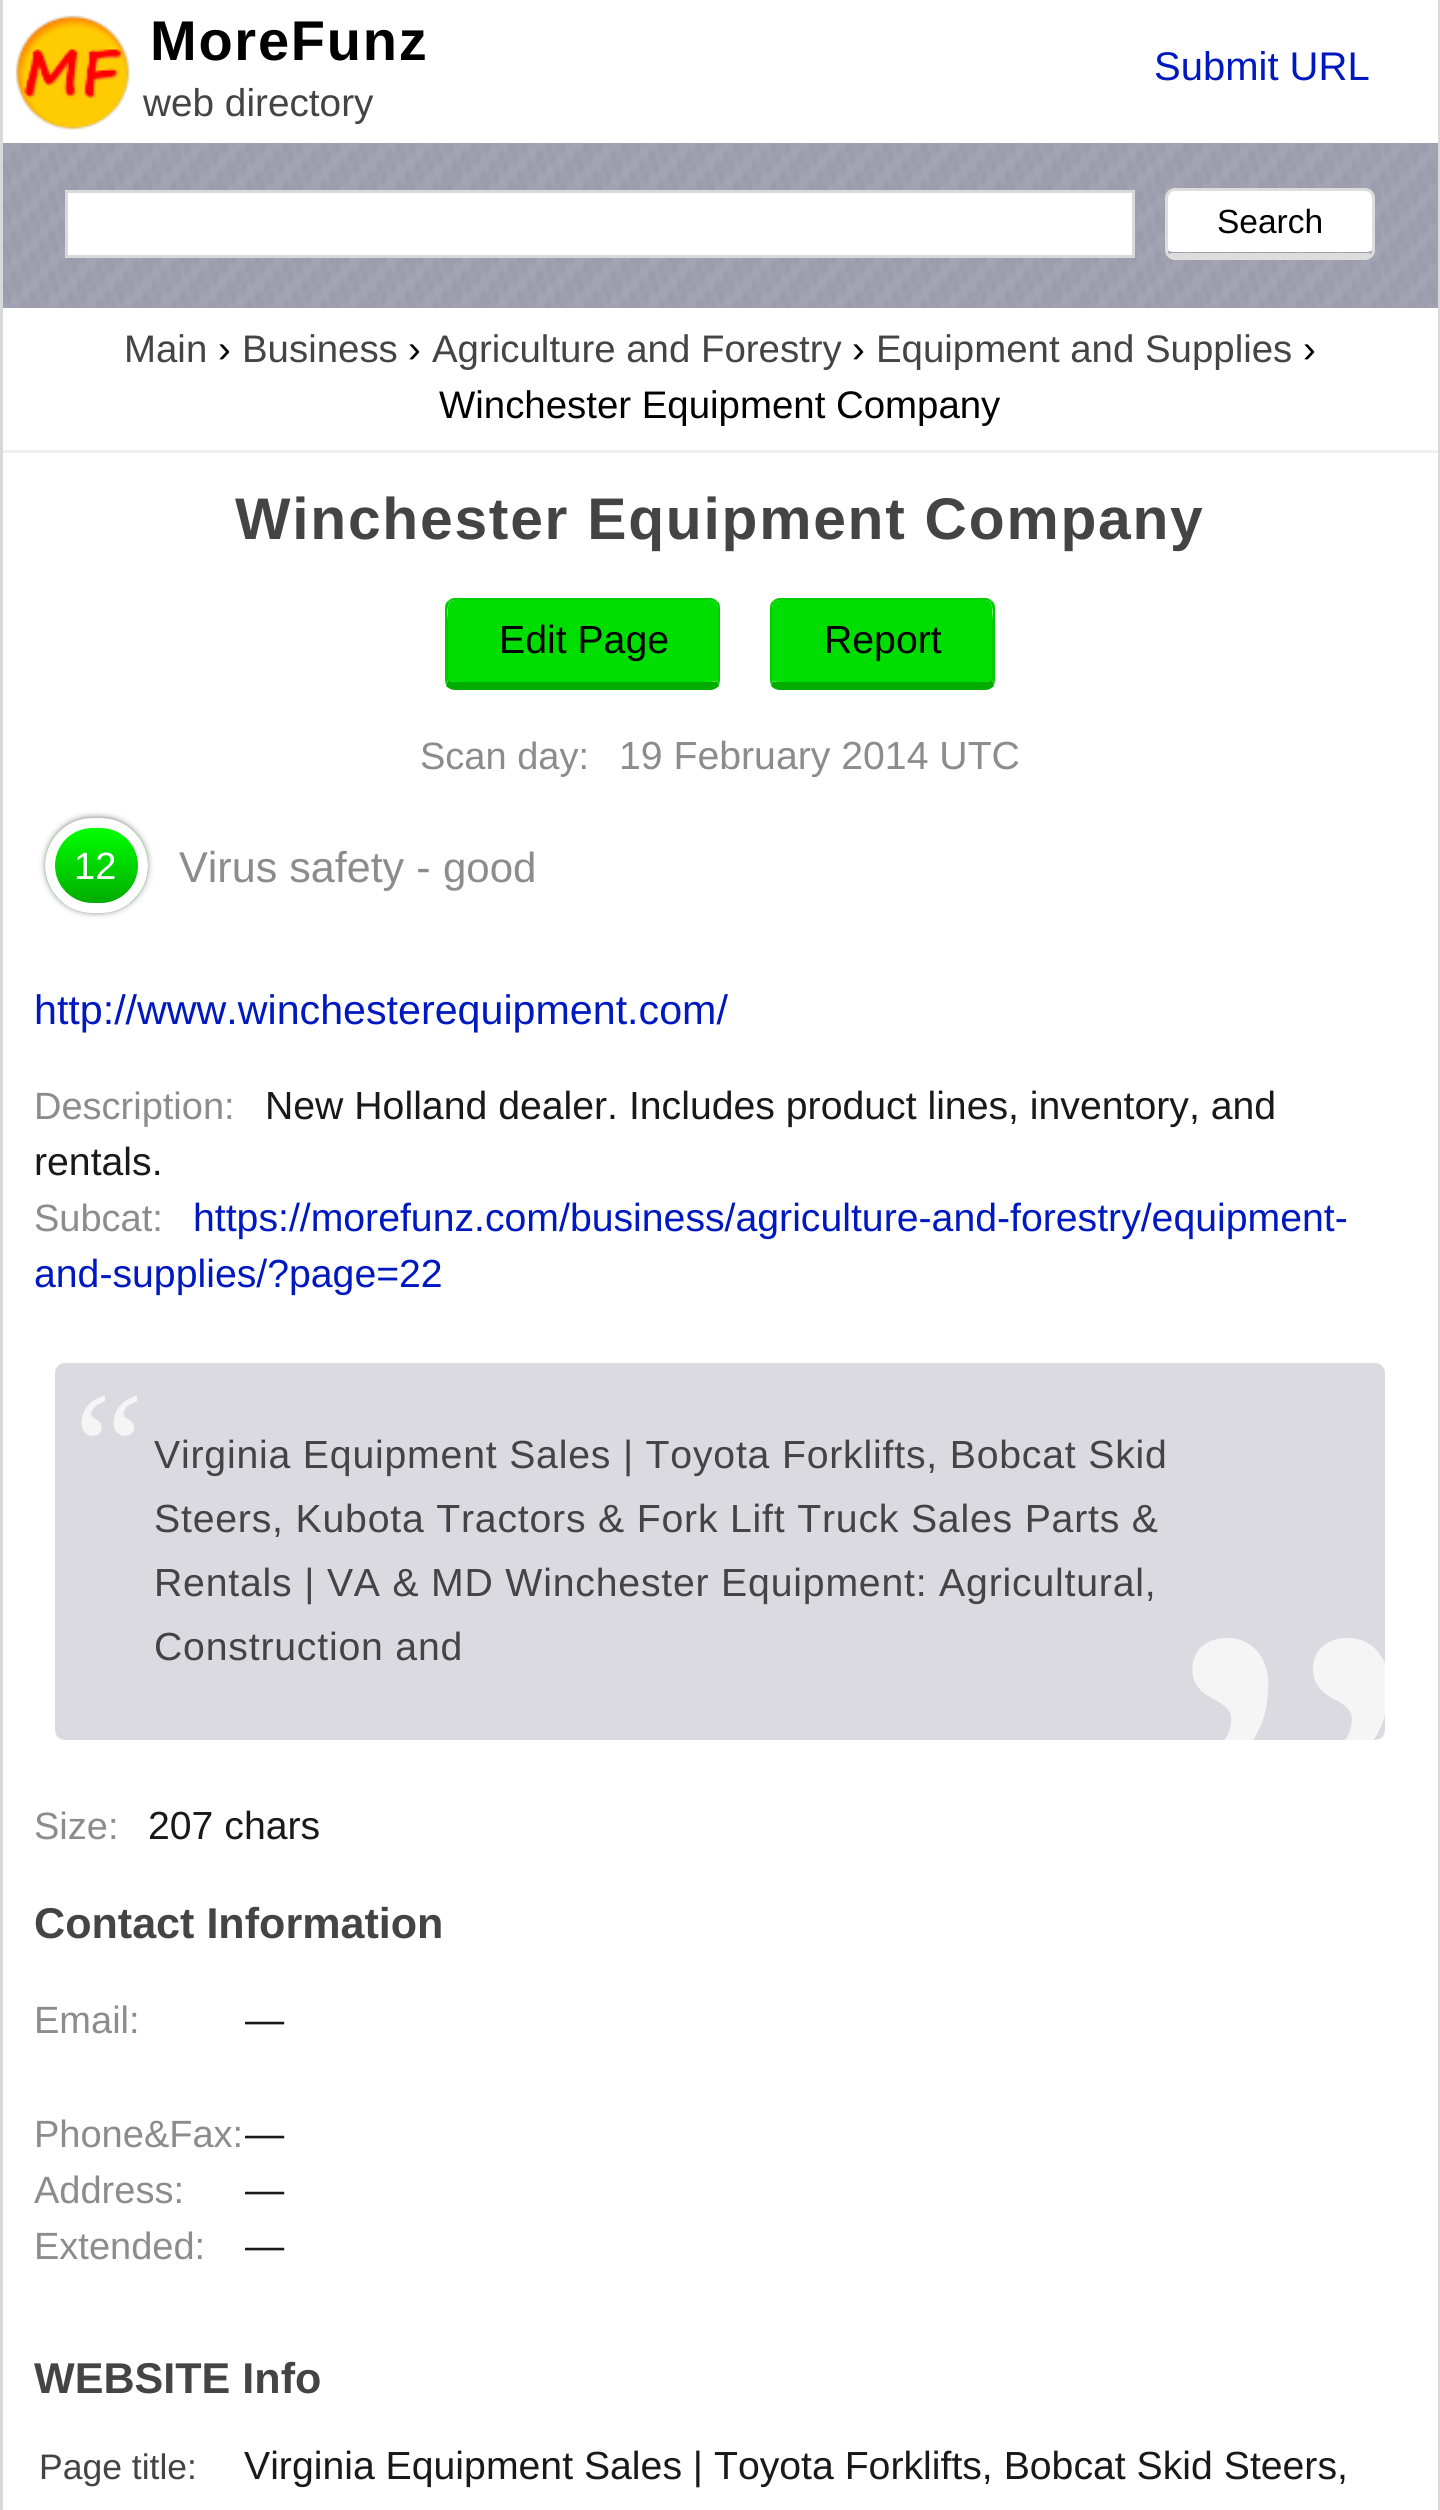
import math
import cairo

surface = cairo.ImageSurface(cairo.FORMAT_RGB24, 1440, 2510)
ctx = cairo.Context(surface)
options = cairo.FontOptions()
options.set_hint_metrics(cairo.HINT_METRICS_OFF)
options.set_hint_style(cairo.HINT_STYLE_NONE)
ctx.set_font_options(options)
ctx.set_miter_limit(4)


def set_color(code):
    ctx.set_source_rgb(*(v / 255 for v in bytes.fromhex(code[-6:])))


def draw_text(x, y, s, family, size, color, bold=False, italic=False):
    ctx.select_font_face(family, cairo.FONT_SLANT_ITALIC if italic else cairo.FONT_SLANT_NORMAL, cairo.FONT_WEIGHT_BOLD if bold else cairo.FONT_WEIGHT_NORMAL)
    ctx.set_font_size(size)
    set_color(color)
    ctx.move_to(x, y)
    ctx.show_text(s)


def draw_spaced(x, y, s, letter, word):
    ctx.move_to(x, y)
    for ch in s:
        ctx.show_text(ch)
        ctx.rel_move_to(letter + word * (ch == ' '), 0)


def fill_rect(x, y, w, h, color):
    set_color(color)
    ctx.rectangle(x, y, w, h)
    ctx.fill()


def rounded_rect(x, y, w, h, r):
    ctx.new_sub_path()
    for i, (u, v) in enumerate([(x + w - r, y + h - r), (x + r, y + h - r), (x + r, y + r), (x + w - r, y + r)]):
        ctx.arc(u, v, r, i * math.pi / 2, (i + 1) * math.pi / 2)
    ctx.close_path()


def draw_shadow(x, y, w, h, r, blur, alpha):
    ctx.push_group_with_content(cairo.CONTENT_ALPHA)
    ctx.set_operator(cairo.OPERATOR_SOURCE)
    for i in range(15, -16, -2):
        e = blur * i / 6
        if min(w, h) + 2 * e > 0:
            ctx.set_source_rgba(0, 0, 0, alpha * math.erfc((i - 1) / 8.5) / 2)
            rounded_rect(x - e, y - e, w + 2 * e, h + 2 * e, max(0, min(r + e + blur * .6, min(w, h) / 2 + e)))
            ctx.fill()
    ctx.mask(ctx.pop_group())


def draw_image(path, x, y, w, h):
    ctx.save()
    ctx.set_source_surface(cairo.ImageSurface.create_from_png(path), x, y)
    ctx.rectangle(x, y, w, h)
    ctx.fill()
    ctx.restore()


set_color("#ffffff")
ctx.paint()
fill_rect(1438, 0, 2, 2510, "#d9d9d9")
fill_rect(0, 0, 3, 2510, "#d9d9d9")
draw_image("assets/img1.png", 15, 15, 115, 115)
ctx.select_font_face("Liberation Sans", cairo.FONT_SLANT_NORMAL, cairo.FONT_WEIGHT_BOLD)
ctx.set_font_size(56)
set_color("#000000")
draw_spaced(150, 60, "MoreFunz", 1.75, 0)
draw_text(143, 116, "web directory", "Liberation Sans", 38.75, "#444444")
draw_text(1154, 80, "Submit URL", "Liberation Sans", 40, "#0018c0")
fill_rect(3, 143, 1435, 165, "#a0a0b0")
draw_image("assets/img2.png", 3, 143, 1433, 164)
set_color("#ffffff")
ctx.rectangle(66.5, 191.5, 1067, 65)
ctx.fill_preserve()
set_color("#d9d9d9")
ctx.set_line_width(3)
ctx.stroke()
set_color("#ffffff")
ctx.new_path()
ctx.move_to(1175, 190)
ctx.line_to(1365, 190)
ctx.curve_to(1369, 190, 1372, 193, 1372, 198)
ctx.line_to(1372, 250)
ctx.curve_to(1372, 251, 1369, 252, 1365, 252)
ctx.line_to(1175, 252)
ctx.curve_to(1171, 252, 1168, 251, 1168, 250)
ctx.line_to(1168, 198)
ctx.curve_to(1168, 193, 1171, 190, 1175, 190)
ctx.close_path()
ctx.fill()
rounded_rect(1166.5, 189.5, 207, 69, 8.5)
set_color("#dddddd")
ctx.stroke()
fill_rect(1170, 253, 200, 4, "#dddddd")
draw_text(1217, 233, "Search", "Liberation Sans", 33.5, "#000000")
fill_rect(3, 450, 1435, 3, "#f0f0f0")
draw_text(124, 362, "Main", "Liberation Sans", 38.4, "#444444")
draw_text(218, 362, "›", "Liberation Sans", 38.4, "#000000")
draw_text(242, 362, "Business", "Liberation Sans", 38.4, "#444444")
draw_text(408, 362, "›", "Liberation Sans", 38.4, "#000000")
draw_text(432, 362, "Agriculture and Forestry", "Liberation Sans", 38.4, "#444444")
draw_text(852, 362, "›", "Liberation Sans", 38.4, "#000000")
draw_text(876, 362, "Equipment and Supplies", "Liberation Sans", 38.4, "#444444")
draw_text(1303, 362, "›", "Liberation Sans", 38.4, "#000000")
draw_text(439, 418, "Winchester Equipment Company", "Liberation Sans", 38.4, "#000000")
ctx.select_font_face("Liberation Sans", cairo.FONT_SLANT_NORMAL, cairo.FONT_WEIGHT_BOLD)
ctx.set_font_size(58.75)
set_color("#444444")
draw_spaced(235, 539, "Winchester Equipment Company", 1.75, 0)
set_color("#00dd00")
ctx.new_path()
ctx.move_to(455, 600)
ctx.line_to(710, 600)
ctx.curve_to(714, 600, 718, 603, 718, 608)
ctx.line_to(718, 680)
ctx.curve_to(718, 681, 714, 682, 710, 682)
ctx.line_to(455, 682)
ctx.curve_to(451, 682, 448, 681, 448, 680)
ctx.line_to(448, 608)
ctx.curve_to(448, 603, 451, 600, 455, 600)
ctx.close_path()
ctx.fill()
set_color("#00cc00")
ctx.new_path()
ctx.move_to(455, 598)
ctx.curve_to(452, 598, 450, 599, 448, 601)
ctx.line_to(450, 602)
ctx.curve_to(451, 601, 453, 600, 455, 600)
ctx.line_to(710, 600)
ctx.curve_to(712, 600, 714, 601, 715, 602)
ctx.line_to(717, 601)
ctx.curve_to(715, 599, 713, 598, 710, 598)
ctx.close_path()
ctx.fill()
ctx.new_path()
ctx.move_to(717, 601)
ctx.curve_to(719, 602, 720, 605, 720, 608)
ctx.line_to(720, 680)
ctx.curve_to(720, 682, 719, 684, 719, 686)
ctx.line_to(717, 681)
ctx.line_to(718, 680)
ctx.line_to(718, 606)
ctx.curve_to(717, 605, 717, 603, 715, 602)
ctx.close_path()
ctx.fill()
set_color("#00ac00")
ctx.new_path()
ctx.move_to(455, 690)
ctx.line_to(710, 690)
ctx.curve_to(714, 690, 717, 688, 719, 686)
ctx.line_to(717, 681)
ctx.curve_to(716, 682, 713, 682, 710, 682)
ctx.line_to(455, 682)
ctx.curve_to(452, 682, 449, 681, 448, 680)
ctx.line_to(446, 686)
ctx.curve_to(448, 688, 451, 690, 455, 690)
ctx.close_path()
ctx.fill()
set_color("#00cc00")
ctx.new_path()
ctx.move_to(445, 608)
ctx.line_to(445, 680)
ctx.curve_to(445, 682, 446, 684, 446, 686)
ctx.line_to(448, 680)
ctx.line_to(448, 620)
ctx.curve_to(448, 617, 446, 607, 450, 602)
ctx.line_to(448, 601)
ctx.curve_to(446, 602, 445, 605, 445, 608)
ctx.close_path()
ctx.fill()
draw_text(499, 653, "Edit Page", "Liberation Sans", 39.2, "#000000")
set_color("#00dd00")
ctx.new_path()
ctx.move_to(780, 600)
ctx.line_to(985, 600)
ctx.curve_to(989, 600, 992, 603, 992, 608)
ctx.line_to(992, 680)
ctx.curve_to(992, 681, 989, 682, 985, 682)
ctx.line_to(780, 682)
ctx.curve_to(776, 682, 772, 681, 772, 680)
ctx.line_to(772, 608)
ctx.curve_to(772, 603, 776, 600, 780, 600)
ctx.close_path()
ctx.fill()
set_color("#00cc00")
ctx.new_path()
ctx.move_to(780, 598)
ctx.curve_to(777, 598, 775, 599, 773, 601)
ctx.line_to(775, 602)
ctx.curve_to(776, 601, 778, 600, 780, 600)
ctx.line_to(985, 600)
ctx.curve_to(987, 600, 989, 601, 990, 602)
ctx.line_to(992, 601)
ctx.curve_to(990, 599, 988, 598, 985, 598)
ctx.close_path()
ctx.fill()
ctx.new_path()
ctx.move_to(992, 601)
ctx.curve_to(994, 602, 995, 605, 995, 608)
ctx.line_to(995, 680)
ctx.curve_to(995, 682, 994, 684, 994, 686)
ctx.line_to(992, 680)
ctx.line_to(992, 620)
ctx.curve_to(992, 617, 994, 607, 990, 602)
ctx.close_path()
ctx.fill()
set_color("#00ac00")
ctx.new_path()
ctx.move_to(780, 690)
ctx.line_to(985, 690)
ctx.curve_to(989, 690, 992, 688, 994, 686)
ctx.line_to(992, 680)
ctx.curve_to(991, 681, 988, 682, 985, 682)
ctx.line_to(780, 682)
ctx.curve_to(777, 682, 774, 682, 773, 681)
ctx.line_to(771, 686)
ctx.curve_to(773, 688, 776, 690, 780, 690)
ctx.close_path()
ctx.fill()
set_color("#00cc00")
ctx.new_path()
ctx.move_to(770, 608)
ctx.line_to(770, 680)
ctx.curve_to(770, 682, 771, 684, 771, 686)
ctx.line_to(773, 681)
ctx.line_to(772, 680)
ctx.line_to(772, 606)
ctx.curve_to(773, 605, 773, 603, 775, 602)
ctx.line_to(773, 601)
ctx.curve_to(771, 602, 770, 605, 770, 608)
ctx.close_path()
ctx.fill()
draw_text(824, 653, "Report", "Liberation Sans", 39.2, "#000000")
draw_text(420, 769, "Scan day:", "Liberation Sans", 38, "#8c8c8c")
draw_text(619, 769, "19 February 2014 UTC", "Liberation Sans", 39.2, "#8c8c8c")
set_color("#000000")
draw_shadow(48, 820, 97, 90, 45, 4, 1)
ctx.save()
rounded_rect(45, 818, 103, 95, 47.5)
ctx.clip()
gradient = cairo.LinearGradient(96, 903, 96, 828)
gradient.add_color_stop_rgba(0, 0, 0.675, 0, 1)
gradient.add_color_stop_rgba(1, 0, 1, 0, 1)
ctx.set_source(gradient)
ctx.rectangle(45, 828, 103, 75)
ctx.fill()
ctx.restore()
rounded_rect(50, 823, 93, 85, 42.5)
set_color("#ffffff")
ctx.set_line_width(10)
ctx.stroke()
draw_text(74, 879, "12", "Liberation Sans", 38, "#ffffff")
draw_text(179, 882, "Virus safety -", "Liberation Sans", 43.1, "#8c8c8c")
draw_text(443, 882, "good", "Liberation Sans", 42, "#8c8c8c")
draw_text(34, 1024, "http://www.winchesterequipment.com/", "Liberation Sans", 41.2, "#0018c0")
draw_text(34, 1119, "Description:", "Liberation Sans", 38, "#8c8c8c")
draw_text(265, 1119, "New Holland dealer. Includes product lines, inventory, and", "Liberation Sans", 39.2, "#191919")
draw_text(34, 1175, "rentals.", "Liberation Sans", 39.2, "#191919")
draw_text(34, 1231, "Subcat:", "Liberation Sans", 38, "#8c8c8c")
draw_text(193, 1231, "https://morefunz.com/business/agriculture-and-forestry/equipment-", "Liberation Sans", 39.2, "#0018c0")
draw_text(34, 1287, "and-supplies/?page=22", "Liberation Sans", 39.2, "#0018c0")
set_color("#dadae0")
rounded_rect(55, 1363, 1330, 377, 10)
ctx.fill()
ctx.select_font_face("Liberation Serif")
ctx.set_font_size(157)
set_color("#f5f5f6")
draw_spaced(74, 1500, "“", 0.8, 0)
ctx.select_font_face("Liberation Sans")
ctx.set_font_size(39.2)
set_color("#444444")
draw_spaced(154, 1468, "Virginia Equipment Sales | Toyota Forklifts, Bobcat Skid", 0.8, 0)
draw_spaced(154, 1532, "Steers, Kubota Tractors & Fork Lift Truck Sales Parts &", 0.8, 0)
draw_spaced(154, 1596, "Rentals | VA & MD Winchester Equipment: Agricultural,", 0.8, 0)
draw_spaced(154, 1660, "Construction and", 0.8, 0)
ctx.save()
rounded_rect(55, 1363, 1330, 377, 10)
ctx.clip()
ctx.select_font_face("Liberation Serif")
ctx.set_font_size(588)
set_color("#f5f5f6")
draw_spaced(1156, 2029, "”", 0.8, 0)
ctx.restore()
draw_text(34, 1839, "Size:", "Liberation Sans", 38, "#8c8c8c")
draw_text(148, 1839, "207 chars", "Liberation Sans", 39.2, "#191919")
draw_text(34, 1938, "Contact Information", "Liberation Sans", 43.1, "#444444", bold=True)
draw_text(34, 2033, "Email:", "Liberation Sans", 38, "#8c8c8c")
draw_text(245, 2033, "—", "Liberation Sans", 39.2, "#191919")
draw_text(34, 2147, "Phone&Fax:", "Liberation Sans", 38, "#8c8c8c")
draw_text(245, 2147, "—", "Liberation Sans", 39.2, "#191919")
draw_text(34, 2203, "Address:", "Liberation Sans", 38, "#8c8c8c")
draw_text(245, 2203, "—", "Liberation Sans", 39.2, "#191919")
draw_text(34, 2259, "Extended:", "Liberation Sans", 38, "#8c8c8c")
draw_text(245, 2259, "—", "Liberation Sans", 39.2, "#191919")
draw_text(34, 2393, "WEBSITE Info", "Liberation Sans", 43.1, "#444444", bold=True)
draw_text(39, 2479, "Page title:", "Liberation Sans", 35.5, "#444444")
draw_text(244, 2479, "Virginia Equipment Sales | Toyota Forklifts, Bobcat Skid Steers,", "Liberation Sans", 39.2, "#191919")
surface.write_to_png("output.png")
